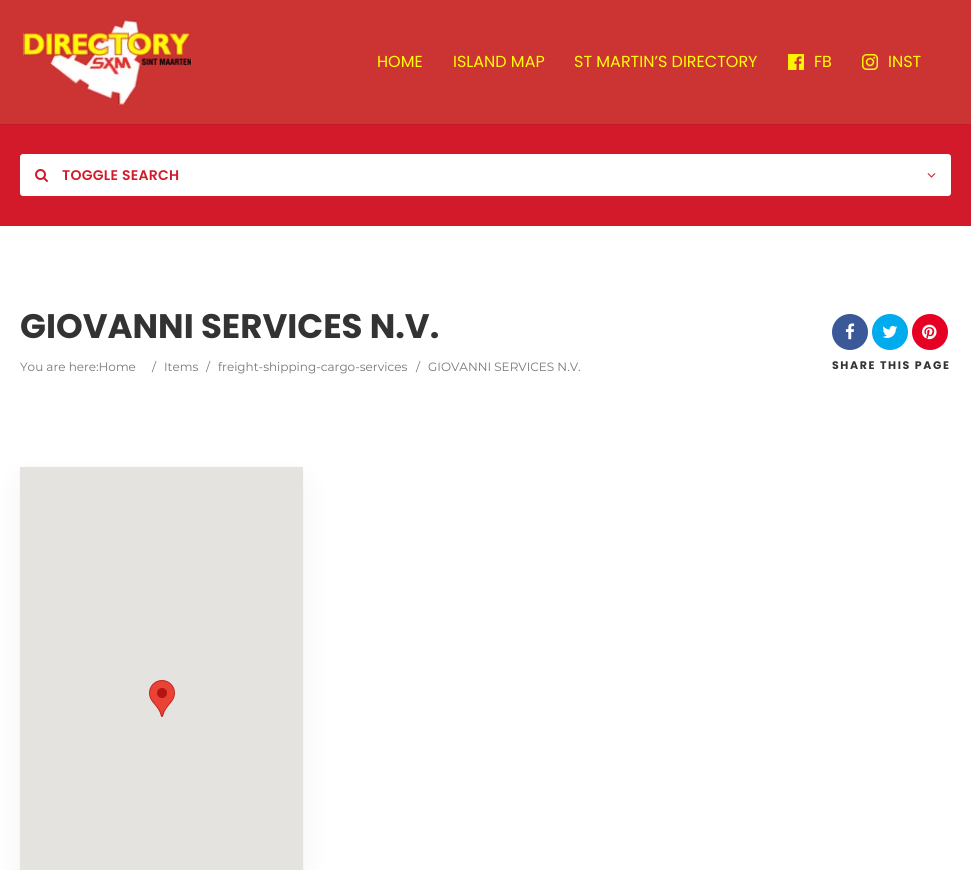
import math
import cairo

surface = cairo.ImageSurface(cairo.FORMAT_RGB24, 971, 870)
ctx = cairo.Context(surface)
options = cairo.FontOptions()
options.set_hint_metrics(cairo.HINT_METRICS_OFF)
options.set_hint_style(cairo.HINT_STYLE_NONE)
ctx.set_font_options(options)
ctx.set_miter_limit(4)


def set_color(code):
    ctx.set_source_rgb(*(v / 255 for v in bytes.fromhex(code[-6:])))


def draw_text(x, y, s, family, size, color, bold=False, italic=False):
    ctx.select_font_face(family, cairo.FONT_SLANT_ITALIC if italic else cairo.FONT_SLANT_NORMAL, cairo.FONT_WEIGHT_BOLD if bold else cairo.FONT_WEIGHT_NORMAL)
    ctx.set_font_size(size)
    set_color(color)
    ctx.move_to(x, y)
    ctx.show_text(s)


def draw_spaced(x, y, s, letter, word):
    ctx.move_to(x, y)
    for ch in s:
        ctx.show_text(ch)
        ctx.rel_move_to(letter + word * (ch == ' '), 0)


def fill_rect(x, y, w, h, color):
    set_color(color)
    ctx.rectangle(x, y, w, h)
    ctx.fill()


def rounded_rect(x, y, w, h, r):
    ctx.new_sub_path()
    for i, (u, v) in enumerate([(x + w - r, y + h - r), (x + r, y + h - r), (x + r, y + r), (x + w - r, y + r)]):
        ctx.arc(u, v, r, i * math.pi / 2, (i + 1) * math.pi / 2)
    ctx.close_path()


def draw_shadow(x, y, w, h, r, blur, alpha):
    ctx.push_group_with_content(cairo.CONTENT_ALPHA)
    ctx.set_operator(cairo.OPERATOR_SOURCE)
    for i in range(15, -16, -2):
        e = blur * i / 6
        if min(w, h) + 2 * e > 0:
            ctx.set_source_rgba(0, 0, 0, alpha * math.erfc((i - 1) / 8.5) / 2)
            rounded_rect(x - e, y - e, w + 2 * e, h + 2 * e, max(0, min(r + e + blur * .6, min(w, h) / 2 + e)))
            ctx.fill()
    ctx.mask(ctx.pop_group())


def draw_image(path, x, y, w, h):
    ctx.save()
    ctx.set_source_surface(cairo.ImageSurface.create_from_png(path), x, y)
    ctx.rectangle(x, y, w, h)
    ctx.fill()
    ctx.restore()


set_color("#ffffff")
ctx.paint()
fill_rect(0, 0, 971, 1, "#ca3232")
fill_rect(0, 124, 971, 1, "#c81929")
fill_rect(0, 1, 971, 123, "#cc3333")
draw_image("assets/img1.png", 23, 20, 170, 85)
draw_text(377, 67, "HOME", "Poppins", 16, "#ffff00")
draw_text(453, 67, "ISLAND MAP", "Poppins", 16, "#ffff00")
draw_text(574, 67, "ST MARTIN’S DIRECTORY", "Poppins", 16, "#ffff00")
draw_image("assets/img2.png", 788, 54, 16, 16)
draw_text(814, 67, "FB", "Poppins", 16, "#ffff00")
draw_image("assets/img3.png", 862, 54, 16, 16)
draw_text(888, 67, "INST", "Poppins", 16, "#ffff00")
fill_rect(0, 125, 971, 101, "#d31a2b")
set_color("#ffffff")
rounded_rect(20, 154, 931, 42, 3)
ctx.fill()
draw_image("assets/img4.png", 35, 169, 13, 13)
ctx.select_font_face("Poppins SemiBold")
ctx.set_font_size(14)
set_color("#d31a2b")
draw_spaced(62, 180, "TOGGLE SEARCH", 0.3, 0)
draw_image("assets/img5.png", 927, 173, 9, 5)
draw_text(20, 338, "GIOVANNI SERVICES N.V.", "Poppins", 34, "#333333", bold=True)
draw_text(20, 371, "You are here:Home", "Montserrat", 12, "#777777")
draw_text(152, 371, "/", "Montserrat", 12, "#777777")
draw_text(164, 371, "Items", "Montserrat", 12, "#777777")
draw_text(206, 371, "/", "Montserrat", 12, "#777777")
draw_text(218, 371, "freight-shipping-cargo-services", "Montserrat", 12, "#777777")
draw_text(416, 371, "/", "Montserrat", 12, "#777777")
draw_text(428, 371, "GIOVANNI SERVICES N.V.", "Montserrat", 12, "#777777")
set_color("#3b5998")
ctx.new_path()
ctx.arc(850, 332, 18, 0, 2 * math.pi)
ctx.fill()
draw_image("assets/img6.png", 845, 323, 10, 17)
set_color("#00aced")
ctx.arc(890, 332, 18, 0, 2 * math.pi)
ctx.fill()
draw_image("assets/img7.png", 882, 325, 16, 13)
set_color("#e60023")
ctx.arc(930, 332, 18, 0, 2 * math.pi)
ctx.fill()
draw_image("assets/img8.png", 922, 324, 15, 16)
ctx.select_font_face("Poppins", cairo.FONT_SLANT_NORMAL, cairo.FONT_WEIGHT_BOLD)
ctx.set_font_size(11)
set_color("#333333")
draw_spaced(832, 369, "SHARE THIS PAGE", 1.6, 0)
rounded_rect(19.5, 466.5, 284, 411, 6.5)
set_color("#fcfcfc")
ctx.set_line_width(1)
ctx.stroke()
set_color("#000000")
draw_shadow(20, 482, 283, 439, 6, 15, 0.05)
fill_rect(20, 467, 283, 403, "#e5e3df")
draw_image("assets/img9.png", 149, 680, 26, 37)
surface.write_to_png("output.png")
